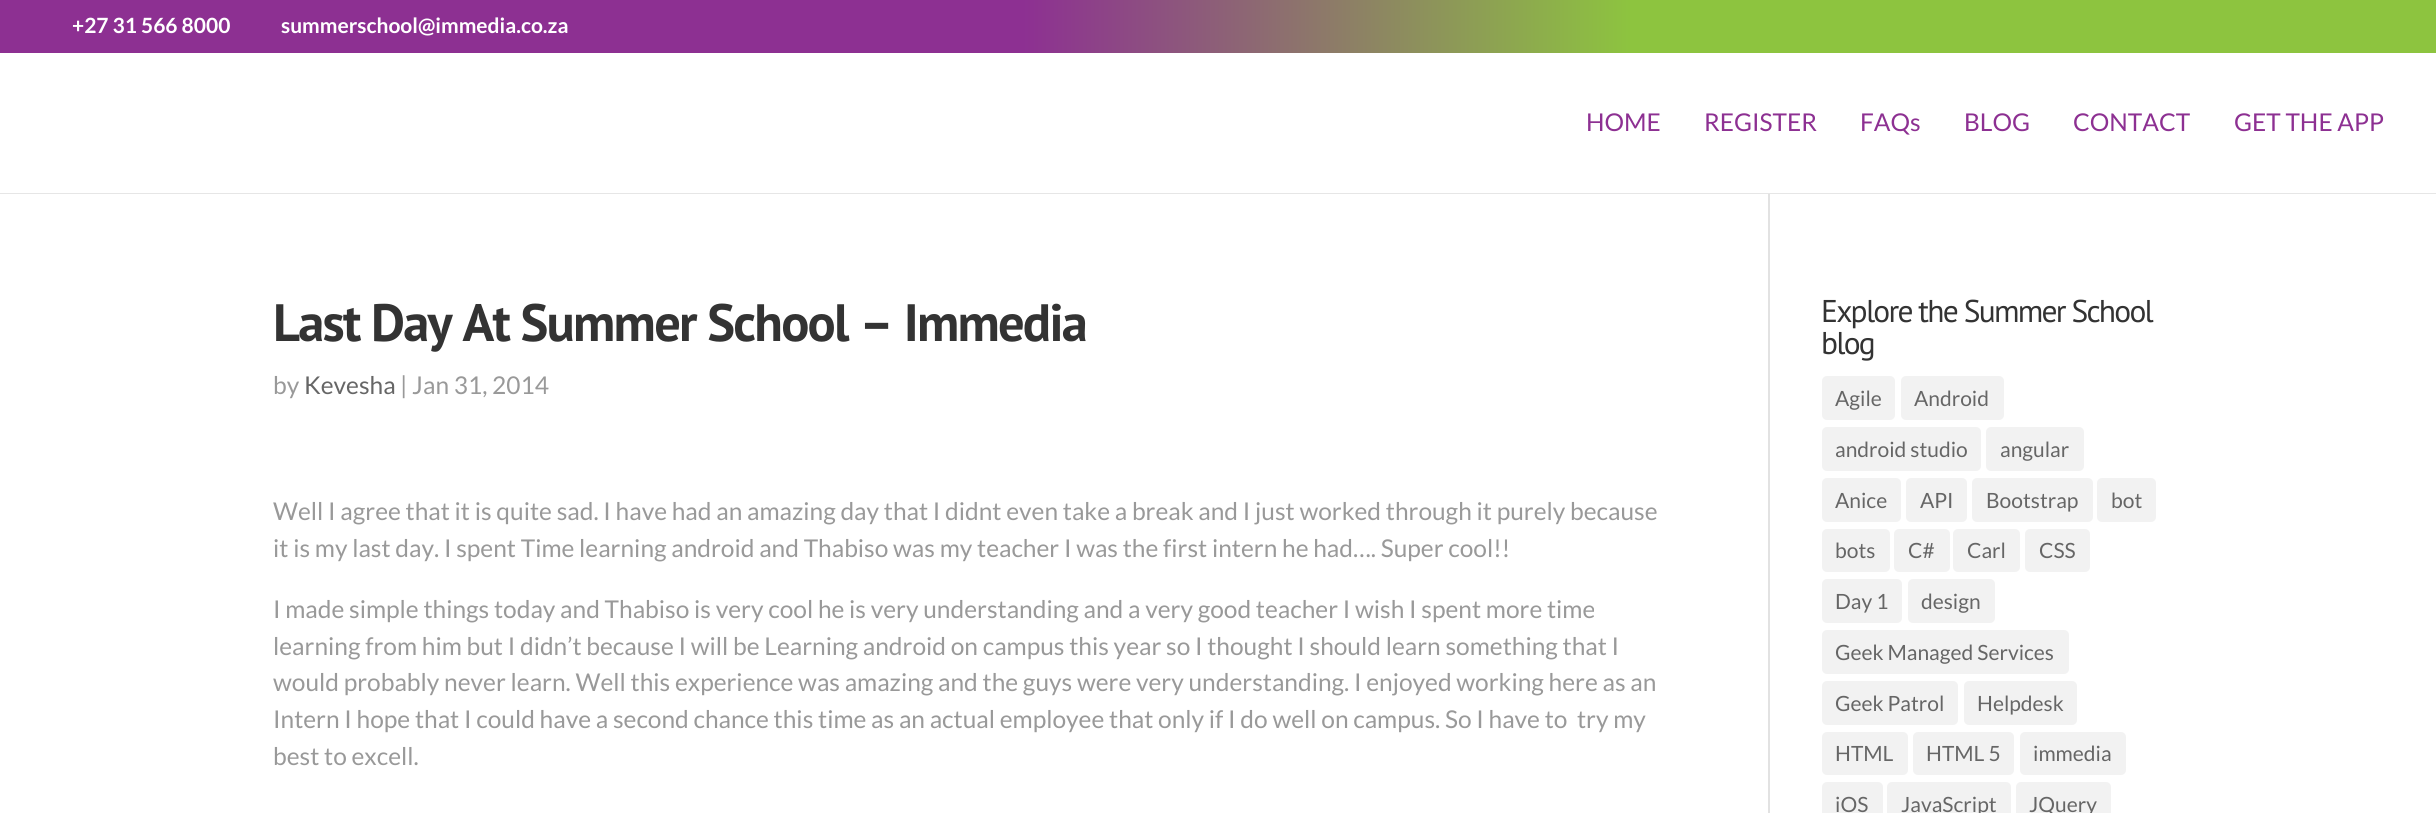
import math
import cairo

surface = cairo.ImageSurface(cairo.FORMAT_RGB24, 2436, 813)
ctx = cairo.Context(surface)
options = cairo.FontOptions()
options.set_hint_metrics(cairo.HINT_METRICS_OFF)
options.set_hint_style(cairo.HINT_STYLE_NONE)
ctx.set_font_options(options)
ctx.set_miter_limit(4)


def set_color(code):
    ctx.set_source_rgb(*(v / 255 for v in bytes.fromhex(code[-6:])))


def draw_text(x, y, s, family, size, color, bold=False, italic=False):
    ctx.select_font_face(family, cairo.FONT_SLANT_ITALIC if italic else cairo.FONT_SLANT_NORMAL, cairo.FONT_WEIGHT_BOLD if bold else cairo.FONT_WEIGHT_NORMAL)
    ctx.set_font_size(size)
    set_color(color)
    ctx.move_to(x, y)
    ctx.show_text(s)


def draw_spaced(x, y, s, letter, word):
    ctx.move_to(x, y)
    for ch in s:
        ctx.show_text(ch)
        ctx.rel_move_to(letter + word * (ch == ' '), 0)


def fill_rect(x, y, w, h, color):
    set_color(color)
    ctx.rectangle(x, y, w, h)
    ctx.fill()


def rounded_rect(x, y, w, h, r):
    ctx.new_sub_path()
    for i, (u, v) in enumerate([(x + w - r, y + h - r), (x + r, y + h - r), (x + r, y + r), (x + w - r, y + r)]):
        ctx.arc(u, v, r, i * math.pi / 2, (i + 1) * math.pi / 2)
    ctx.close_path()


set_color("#ffffff")
ctx.paint()
gradient = cairo.LinearGradient(0, 26, 2436, 26)
gradient.add_color_stop_rgba(0.42, 0.553, 0.188, 0.573, 1)
gradient.add_color_stop_rgba(0.67, 0.553, 0.769, 0.247, 1)
ctx.set_source(gradient)
ctx.rectangle(0, 0, 2436, 53)
ctx.fill()
draw_text(72, 33, "+27 31 566 8000", "Lato", 21, "#ffffff", bold=True)
draw_text(281, 33, "summerschool@immedia.co.za", "Lato", 21, "#ffffff", bold=True)
fill_rect(0, 193, 2436, 1, "#e6e6e6")
draw_text(1586, 131, "HOME", "Lato", 24.5, "#8d3092")
draw_text(1704, 131, "REGISTER", "Lato", 24.5, "#8d3092")
draw_text(1860, 131, "FAQs", "Lato", 24.5, "#8d3092")
draw_text(1964, 131, "BLOG", "Lato", 24.5, "#8d3092")
draw_text(2073, 131, "CONTACT", "Lato", 24.5, "#8d3092")
draw_text(2234, 131, "GET THE APP", "Lato", 24.5, "#8d3092")
fill_rect(1768, 194, 2, 619, "#e2e2e2")
ctx.select_font_face("PT Sans", cairo.FONT_SLANT_NORMAL, cairo.FONT_WEIGHT_BOLD)
ctx.set_font_size(52.5)
set_color("#333333")
draw_spaced(273, 341, "Last Day At Summer School – Immedia", -1.75, 0)
draw_text(273, 394, "by", "Lato", 24.5, "#999999")
draw_text(304, 394, "Kevesha", "Lato", 24.5, "#666666")
draw_text(400, 394, "| Jan 31, 2014", "Lato", 24.5, "#999999")
draw_text(273, 520, "Well I agree that it is quite sad. I have had an amazing day that I didnt even take a break and I just worked through it purely because", "Lato", 24.5, "#999999")
draw_text(273, 557, "it is my last day. I spent Time learning android and Thabiso was my teacher I was the first intern he had…. Super cool!!", "Lato", 24.5, "#999999")
draw_text(273, 618, "I made simple things today and Thabiso is very cool he is very understanding and a very good teacher I wish I spent more time", "Lato", 24.5, "#999999")
draw_text(273, 655, "learning from him but I didn’t because I will be Learning android on campus this year so I thought I should learn something that I", "Lato", 24.5, "#999999")
draw_text(273, 691, "would probably never learn. Well this experience was amazing and the guys were very understanding. I enjoyed working here as an", "Lato", 24.5, "#999999")
draw_text(273, 728, "Intern I hope that I could have a second chance this time as an actual employee that only if I do well on campus. So I have to  try my", "Lato", 24.5, "#999999")
draw_text(273, 765, "best to excell.", "Lato", 24.5, "#999999")
ctx.select_font_face("PT Sans")
ctx.set_font_size(31.5)
set_color("#333333")
draw_spaced(1821, 322, "Explore the Summer School", -1.75, 0)
draw_spaced(1821, 354, "blog", -1.75, 0)
set_color("#f2f2f2")
rounded_rect(1822, 376, 73, 44, 5)
ctx.fill()
draw_text(1835, 406, "Agile", "Lato", 21, "#666666")
set_color("#f2f2f2")
rounded_rect(1901, 376, 103, 44, 5)
ctx.fill()
draw_text(1914, 406, "Android", "Lato", 21, "#666666")
set_color("#f2f2f2")
rounded_rect(1822, 427, 159, 44, 5)
ctx.fill()
draw_text(1835, 457, "android studio", "Lato", 21, "#666666")
set_color("#f2f2f2")
rounded_rect(1986, 427, 98, 44, 5)
ctx.fill()
draw_text(2000, 457, "angular", "Lato", 21, "#666666")
set_color("#f2f2f2")
rounded_rect(1822, 478, 79, 44, 5)
ctx.fill()
draw_text(1835, 508, "Anice", "Lato", 21, "#666666")
set_color("#f2f2f2")
rounded_rect(1906, 478, 61, 44, 5)
ctx.fill()
draw_text(1920, 508, "API", "Lato", 21, "#666666")
set_color("#f2f2f2")
rounded_rect(1972, 478, 121, 44, 5)
ctx.fill()
draw_text(1986, 508, "Bootstrap", "Lato", 21, "#666666")
set_color("#f2f2f2")
rounded_rect(2097, 478, 59, 44, 5)
ctx.fill()
draw_text(2111, 508, "bot", "Lato", 21, "#666666")
set_color("#f2f2f2")
rounded_rect(1822, 529, 68, 43, 5)
ctx.fill()
draw_text(1835, 558, "bots", "Lato", 21, "#666666")
set_color("#f2f2f2")
rounded_rect(1894, 529, 56, 43, 5)
ctx.fill()
draw_text(1908, 558, "C#", "Lato", 21, "#666666")
set_color("#f2f2f2")
rounded_rect(1953, 529, 67, 43, 5)
ctx.fill()
draw_text(1967, 558, "Carl", "Lato", 21, "#666666")
set_color("#f2f2f2")
rounded_rect(2025, 529, 65, 43, 5)
ctx.fill()
draw_text(2039, 558, "CSS", "Lato", 21, "#666666")
set_color("#f2f2f2")
rounded_rect(1822, 579, 80, 44, 5)
ctx.fill()
draw_text(1835, 609, "Day 1", "Lato", 21, "#666666")
set_color("#f2f2f2")
rounded_rect(1908, 579, 87, 44, 5)
ctx.fill()
draw_text(1921, 609, "design", "Lato", 21, "#666666")
set_color("#f2f2f2")
rounded_rect(1822, 630, 247, 44, 5)
ctx.fill()
draw_text(1835, 660, "Geek Managed Services", "Lato", 21, "#666666")
set_color("#f2f2f2")
rounded_rect(1822, 681, 136, 44, 5)
ctx.fill()
draw_text(1835, 711, "Geek Patrol", "Lato", 21, "#666666")
set_color("#f2f2f2")
rounded_rect(1964, 681, 113, 44, 5)
ctx.fill()
draw_text(1977, 711, "Helpdesk", "Lato", 21, "#666666")
set_color("#f2f2f2")
rounded_rect(1822, 732, 86, 43, 5)
ctx.fill()
draw_text(1835, 761, "HTML", "Lato", 21, "#666666")
set_color("#f2f2f2")
rounded_rect(1913, 732, 101, 43, 5)
ctx.fill()
draw_text(1926, 761, "HTML 5", "Lato", 21, "#666666")
set_color("#f2f2f2")
rounded_rect(2020, 732, 106, 43, 5)
ctx.fill()
draw_text(2033, 761, "immedia", "Lato", 21, "#666666")
set_color("#f2f2f2")
rounded_rect(1822, 782, 61, 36, 5)
ctx.fill()
draw_text(1835, 812, "iOS", "Lato", 21, "#666666")
set_color("#f2f2f2")
rounded_rect(1887, 782, 124, 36, 5)
ctx.fill()
draw_text(1901, 812, "JavaScript", "Lato", 21, "#666666")
set_color("#f2f2f2")
rounded_rect(2016, 782, 95, 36, 5)
ctx.fill()
draw_text(2029, 812, "JQuery", "Lato", 21, "#666666")
surface.write_to_png("output.png")
